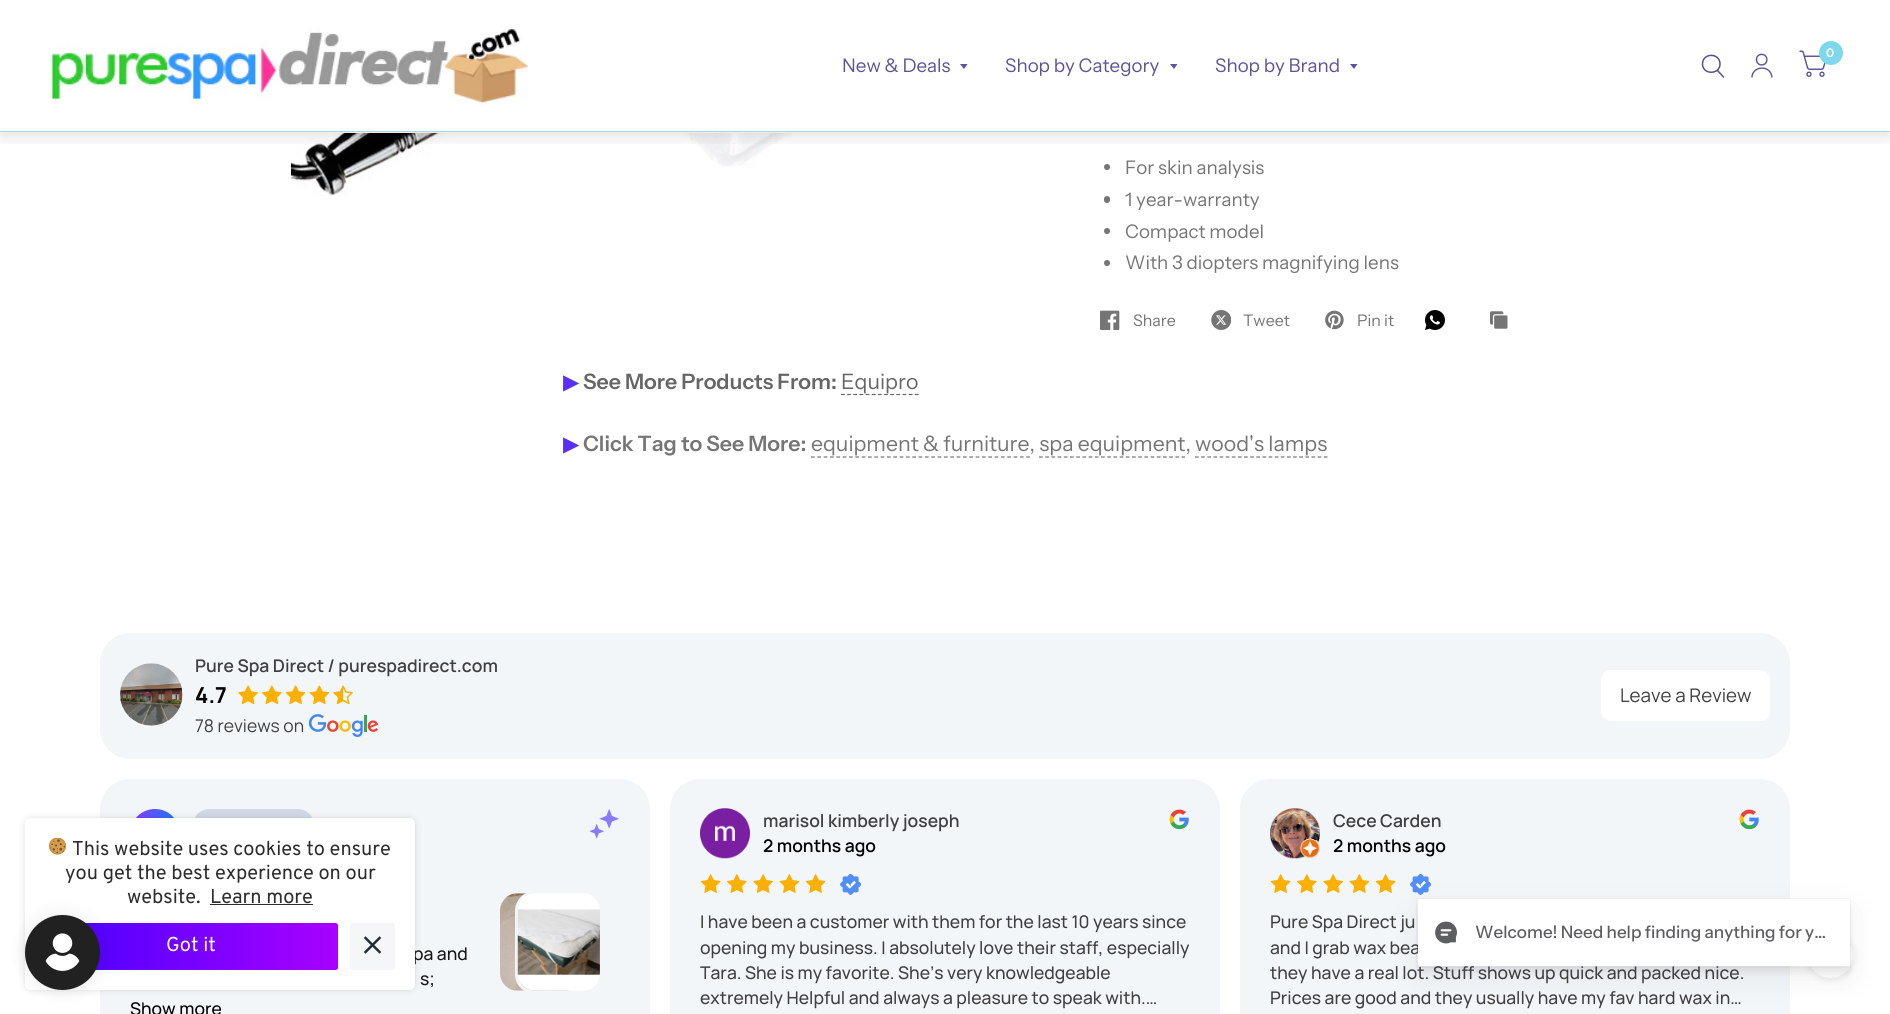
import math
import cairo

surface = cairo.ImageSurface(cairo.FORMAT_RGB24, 1890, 1014)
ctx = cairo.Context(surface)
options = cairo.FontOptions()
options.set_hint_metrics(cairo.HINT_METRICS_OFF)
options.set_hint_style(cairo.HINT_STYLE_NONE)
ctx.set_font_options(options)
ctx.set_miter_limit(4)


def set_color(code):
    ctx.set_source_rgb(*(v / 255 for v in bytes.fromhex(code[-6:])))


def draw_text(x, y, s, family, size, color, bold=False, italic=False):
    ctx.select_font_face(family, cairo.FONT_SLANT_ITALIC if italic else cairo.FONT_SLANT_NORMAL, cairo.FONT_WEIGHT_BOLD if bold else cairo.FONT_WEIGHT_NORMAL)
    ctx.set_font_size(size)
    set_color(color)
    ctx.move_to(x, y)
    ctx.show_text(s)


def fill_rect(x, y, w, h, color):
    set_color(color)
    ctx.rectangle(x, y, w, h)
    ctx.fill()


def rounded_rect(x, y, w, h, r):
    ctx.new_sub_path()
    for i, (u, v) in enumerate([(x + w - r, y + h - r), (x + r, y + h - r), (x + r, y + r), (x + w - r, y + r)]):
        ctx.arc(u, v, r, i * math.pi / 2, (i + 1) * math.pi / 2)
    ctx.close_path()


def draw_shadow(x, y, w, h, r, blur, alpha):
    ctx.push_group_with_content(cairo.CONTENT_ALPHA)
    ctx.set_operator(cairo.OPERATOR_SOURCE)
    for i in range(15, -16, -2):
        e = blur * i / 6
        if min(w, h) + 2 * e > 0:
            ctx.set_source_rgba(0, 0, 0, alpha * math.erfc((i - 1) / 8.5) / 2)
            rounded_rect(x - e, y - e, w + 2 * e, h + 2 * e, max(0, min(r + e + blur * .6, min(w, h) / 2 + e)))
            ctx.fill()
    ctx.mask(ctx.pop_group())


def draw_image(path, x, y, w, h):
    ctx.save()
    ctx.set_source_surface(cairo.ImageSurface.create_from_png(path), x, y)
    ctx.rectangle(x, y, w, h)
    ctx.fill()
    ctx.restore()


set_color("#ffffff")
ctx.paint()
fill_rect(0, 131, 1890, 1, "#bce7fd")
draw_image("assets/img4.png", 291, 133, 708, 63)
ctx.save()
ctx.rectangle(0, 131, 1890, 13)
ctx.clip()
set_color("#000000")
draw_shadow(0, 6, 1890, 132, 0, 7.5, 0.1)
ctx.restore()
draw_image("assets/img1.png", 50, 29, 478, 77)
ctx.new_path()
ctx.move_to(1717.5, 70.5)
ctx.line_to(1723.5, 77)
ctx.move_to(1720, 64)
ctx.curve_to(1720, 75, 1702.5, 75, 1702.5, 64)
ctx.curve_to(1702.5, 52.5, 1720, 52.5, 1720, 64)
ctx.close_path()
set_color("#584d8f")
ctx.set_line_width(1.5)
ctx.set_line_cap(cairo.LINE_CAP_ROUND)
ctx.set_line_join(cairo.LINE_JOIN_ROUND)
ctx.stroke()
draw_image("assets/img2.png", 1751, 53, 22, 25)
draw_image("assets/img3.png", 1799, 50, 27, 27)
set_color("#7fd7eb")
ctx.arc(1831, 53, 12, 0, 2 * math.pi)
ctx.fill()
draw_text(1826, 57, "0", "Instrument Sans SemiBold", 12, "#ffffff")
draw_text(842, 72, "New & Deals", "Instrument Sans", 18.75, "#5b5497")
ctx.new_path()
ctx.move_to(960, 64)
ctx.line_to(967.5, 64)
ctx.line_to(964, 69)
ctx.close_path()
ctx.fill()
draw_text(1005, 72, "Shop by Category", "Instrument Sans", 18.75, "#5b5497")
ctx.new_path()
ctx.move_to(1170, 64)
ctx.line_to(1177.5, 64)
ctx.line_to(1174, 69)
ctx.close_path()
ctx.fill()
draw_text(1215, 72, "Shop by Brand", "Instrument Sans", 18.75, "#5b5497")
ctx.new_path()
ctx.move_to(1350, 64)
ctx.line_to(1357.5, 64)
ctx.line_to(1354, 69)
ctx.close_path()
ctx.fill()
set_color("#757575")
ctx.arc(1107, 167, 3, 0, 2 * math.pi)
ctx.fill()
draw_text(1125, 174, "For skin analysis", "Instrument Sans", 18.75, "#757575")
rounded_rect(1104, 196, 6, 7, 3)
ctx.fill()
draw_text(1125, 206, "1 year-warranty", "Instrument Sans", 18.75, "#757575")
ctx.new_path()
ctx.arc(1107, 231, 3, 0, 2 * math.pi)
ctx.fill()
draw_text(1125, 238, "Compact model", "Instrument Sans", 18.75, "#757575")
ctx.new_path()
ctx.arc(1107, 263, 3, 0, 2 * math.pi)
ctx.fill()
draw_text(1125, 269, "With 3 diopters magnifying lens", "Instrument Sans", 18.75, "#757575")
draw_image("assets/img5.png", 1100, 310, 20, 20)
draw_text(1133, 326, "Share", "Instrument Sans", 16, "#757575")
draw_image("assets/img6.png", 1211, 310, 20, 20)
draw_text(1243, 326, "Tweet", "Instrument Sans", 16, "#757575")
draw_image("assets/img7.png", 1325, 310, 19, 20)
draw_text(1357, 326, "Pin it", "Instrument Sans", 16, "#757575")
draw_image("assets/img8.png", 1425, 310, 20, 20)
draw_image("assets/img9.png", 1490, 311, 18, 18)
draw_text(563, 389, "▶", "DejaVu Sans", 21.25, "#5a31f4")
draw_text(583, 389, "See More Products From:", "Instrument Sans SemiBold", 21.25, "#666666")
ctx.new_path()
ctx.move_to(841, 394.5)
ctx.line_to(919, 394.5)
ctx.set_line_width(1.2)
ctx.set_line_cap(cairo.LINE_CAP_BUTT)
ctx.set_line_join(cairo.LINE_JOIN_MITER)
ctx.set_dash([3.75, 2.4])
ctx.stroke()
draw_text(841, 389, "Equipro", "Instrument Sans", 21.25, "#666666")
draw_text(563, 451, "▶", "DejaVu Sans", 21.25, "#5a31f4")
draw_text(583, 451, "Click Tag to See More:", "Instrument Sans SemiBold", 21.25, "#757575")
draw_text(811, 451, "equipment & furniture, spa equipment, wood's lamps", "Instrument Sans", 21.25, "#757575")
ctx.new_path()
ctx.move_to(811, 457)
ctx.line_to(1030, 457)
ctx.set_dash([3.75, 2.58])
ctx.stroke()
ctx.new_path()
ctx.move_to(1039, 457)
ctx.line_to(1185, 457)
ctx.set_dash([3.75, 2.45])
ctx.stroke()
ctx.new_path()
ctx.move_to(1195, 457)
ctx.line_to(1327.5, 457)
ctx.set_dash([3.75, 2.38])
ctx.stroke()
set_color("#f3f6f9")
rounded_rect(100, 633, 1690, 126, 30)
ctx.fill()
draw_image("assets/img10.png", 120, 663, 63, 63)
draw_text(195, 672, "Pure Spa Direct / purespadirect.com", "Manrope SemiBold", 17.5, "#404040")
draw_text(195, 703, "4.7", "Manrope", 22, "#000000", bold=True)
draw_image("assets/img11.png", 238, 685, 20, 20)
draw_image("assets/img12.png", 262, 685, 20, 20)
draw_image("assets/img13.png", 285, 685, 21, 20)
draw_image("assets/img14.png", 309, 685, 21, 20)
draw_image("assets/img15.png", 333, 685, 20, 20)
draw_text(195, 732, "78 reviews on", "Manrope", 17.5, "#404040")
draw_image("assets/img16.png", 309, 714, 70, 23)
set_color("#ffffff")
rounded_rect(1601, 670, 169, 51, 10)
ctx.fill()
draw_text(1620, 702, "Leave a Review", "Manrope", 18.75, "#404040")
set_color("#f3f6f9")
rounded_rect(100, 779, 550, 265, 30)
ctx.fill()
gradient = cairo.LinearGradient(130, 834, 180, 834)
gradient.add_color_stop_rgba(0, 0.553, 0.22, 1, 1)
gradient.add_color_stop_rgba(1, 0.098, 0.482, 1, 1)
ctx.set_source(gradient)
ctx.arc(155, 834, 25, 0, 2 * math.pi)
ctx.fill()
set_color("#d3d8e7")
rounded_rect(193, 809, 121, 32, 16)
ctx.fill()
draw_image("assets/img17.png", 590, 809, 29, 30)
draw_text(413, 960, "pa and", "Manrope Medium", 17.5, "#161616")
draw_text(420, 985, "s;", "Manrope Medium", 17.5, "#161616")
draw_image("assets/img19.png", 500, 893, 70, 98)
rounded_rect(516.5, 892.5, 85, 100, 18.5)
set_color("#f3f6f9")
ctx.set_line_width(3)
ctx.set_dash([])
ctx.stroke()
draw_image("assets/img18.png", 517, 893, 83, 98)
draw_text(130, 1015, "Show more", "Manrope Medium", 17.5, "#000000")
set_color("#f3f6f9")
rounded_rect(670, 779, 550, 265, 30)
ctx.fill()
draw_image("assets/img20.png", 700, 808, 50, 51)
draw_text(763, 827, "marisol kimberly joseph", "Manrope SemiBold", 17.5, "#404040")
draw_text(763, 852, "2 months ago", "Manrope SemiBold", 17.5, "#000000")
draw_image("assets/img21.png", 1169, 809, 20, 21)
draw_image("assets/img22.png", 700, 874, 21, 19)
draw_image("assets/img23.png", 727, 874, 20, 19)
draw_image("assets/img24.png", 753, 874, 20, 19)
draw_image("assets/img25.png", 779, 874, 21, 19)
draw_image("assets/img22.png", 805, 874, 21, 19)
draw_image("assets/img26.png", 840, 874, 21, 21)
draw_text(700, 928, "I have been a customer with them for the last 10 years since", "Manrope Medium", 17.5, "#404040")
draw_text(700, 954, "opening my business. I absolutely love their staff, especially", "Manrope Medium", 17.5, "#404040")
draw_text(700, 979, "Tara. She is my favorite. She’s very knowledgeable", "Manrope Medium", 17.5, "#404040")
draw_text(700, 1004, "extremely Helpful and always a pleasure to speak with.…", "Manrope Medium", 17.5, "#404040")
set_color("#f3f6f9")
rounded_rect(1240, 779, 550, 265, 30)
ctx.fill()
draw_image("assets/img27.png", 1270, 808, 50, 51)
draw_text(1333, 827, "Cece Carden", "Manrope SemiBold", 17.5, "#404040")
draw_text(1333, 852, "2 months ago", "Manrope SemiBold", 17.5, "#000000")
draw_image("assets/img21.png", 1739, 809, 20, 21)
draw_image("assets/img22.png", 1270, 874, 21, 19)
draw_image("assets/img23.png", 1297, 874, 20, 19)
draw_image("assets/img24.png", 1323, 874, 20, 19)
draw_image("assets/img25.png", 1349, 874, 21, 19)
draw_image("assets/img22.png", 1375, 874, 21, 19)
draw_image("assets/img26.png", 1410, 874, 21, 21)
draw_text(1270, 928, "Pure Spa Direct ju", "Manrope Medium", 17.5, "#404040")
draw_text(1270, 954, "and I grab wax bea", "Manrope Medium", 17.5, "#404040")
draw_text(1270, 979, "they have a real lot. Stuff shows up quick and packed nice.", "Manrope Medium", 17.5, "#404040")
draw_text(1270, 1004, "Prices are good and they usually have my fav hard wax in…", "Manrope Medium", 17.5, "#404040")
set_color("#ffffff")
rounded_rect(25, 818, 390, 172, 6)
ctx.fill()
ctx.save()
ctx.set_fill_rule(cairo.FILL_RULE_EVEN_ODD)
ctx.new_path()
ctx.move_to(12, 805)
ctx.line_to(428, 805)
ctx.line_to(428, 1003)
ctx.line_to(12, 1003)
ctx.close_path()
ctx.move_to(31, 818)
ctx.line_to(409, 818)
ctx.curve_to(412.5, 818, 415, 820.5, 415, 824)
ctx.line_to(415, 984)
ctx.curve_to(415, 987.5, 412.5, 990, 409, 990)
ctx.line_to(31, 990)
ctx.curve_to(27.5, 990, 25, 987.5, 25, 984)
ctx.line_to(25, 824)
ctx.curve_to(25, 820.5, 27.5, 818, 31, 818)
ctx.close_path()
ctx.clip()
set_color("#000000")
draw_shadow(25, 818, 390, 172, 6, 4, 0.12)
ctx.restore()
draw_image("assets/img28.png", 49, 838, 18, 17)
draw_text(72, 855, "This website uses cookies to ensure", "Overpass", 20, "#2d2d2d")
draw_text(65, 879, "you get the best experience on our", "Overpass", 20, "#2d2d2d")
draw_text(127, 903, "website.", "Overpass", 20, "#2d2d2d")
draw_text(210, 903, "Learn more", "Overpass", 20, "#2d2d2d")
fill_rect(210, 904, 103, 1, "#2d2d2d")
gradient = cairo.LinearGradient(45, 946, 338, 946)
gradient.add_color_stop_rgba(0, 0.267, 0.004, 1, 1)
gradient.add_color_stop_rgba(1, 0.663, 0.004, 1, 1)
ctx.set_source(gradient)
rounded_rect(45, 923, 293, 47, 2.5)
ctx.fill()
draw_text(166, 951, "Got it", "Overpass", 20, "#ffffff")
set_color("#f4f6f8")
rounded_rect(350, 923, 45, 47, 2.5)
ctx.fill()
draw_image("assets/img29.png", 363, 936, 19, 18)
set_color("#000000")
draw_shadow(25, 915, 75, 75, 37.5, 9.5, 0.08)
set_color("#212121")
ctx.arc(62.5, 952.5, 37.5, 0, 2 * math.pi)
ctx.fill()
draw_image("assets/img30.png", 45, 933, 35, 38)
set_color("#000000")
draw_shadow(1808, 934, 45, 45, 22.5, 4, 0.1)
set_color("#ffffff")
ctx.arc(1830.5, 955.5, 22.5, 0, 2 * math.pi)
ctx.fill()
set_color("#373f47")
draw_shadow(1418, 909, 432, 69, 2.5, 16, 0.08)
draw_shadow(1418, 904, 432, 69, 2.5, 2.5, 0.08)
ctx.rectangle(1416.5, 898.5, 434, 69)
ctx.set_source_rgba(0.216, 0.247, 0.278, 0.04)
ctx.set_line_width(1)
ctx.stroke()
set_color("#ffffff")
rounded_rect(1418, 899, 432, 67, 2.5)
ctx.fill()
draw_image("assets/img31.png", 1435, 921, 22, 23)
draw_text(1475, 938, "Welcome! Need help finding anything for y…", "Instrument Sans Medium", 17.1, "#5d5e60")
surface.write_to_png("output.png")
